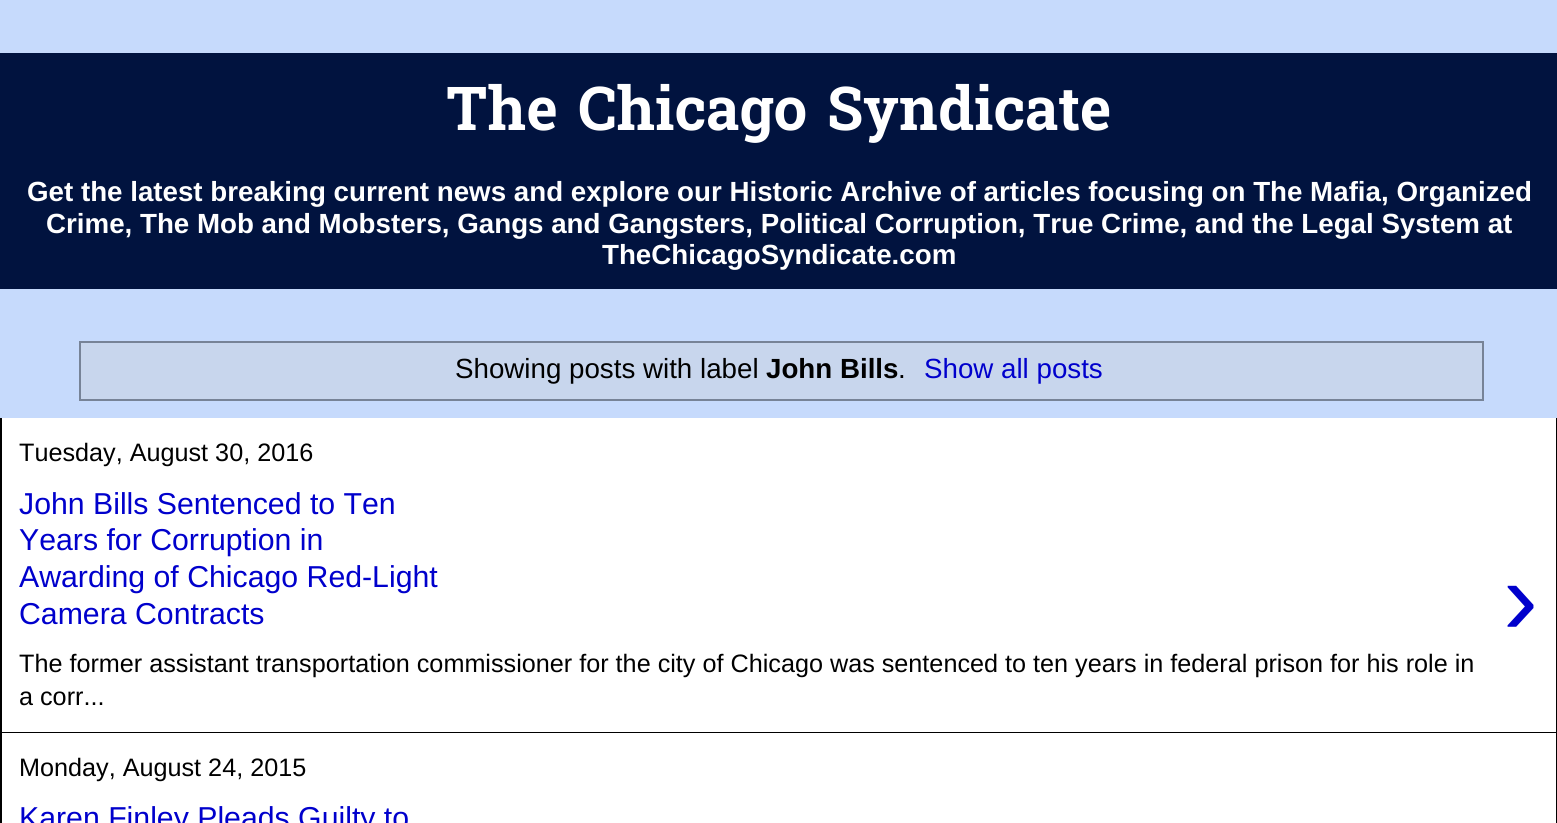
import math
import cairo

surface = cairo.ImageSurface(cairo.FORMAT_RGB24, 1557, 823)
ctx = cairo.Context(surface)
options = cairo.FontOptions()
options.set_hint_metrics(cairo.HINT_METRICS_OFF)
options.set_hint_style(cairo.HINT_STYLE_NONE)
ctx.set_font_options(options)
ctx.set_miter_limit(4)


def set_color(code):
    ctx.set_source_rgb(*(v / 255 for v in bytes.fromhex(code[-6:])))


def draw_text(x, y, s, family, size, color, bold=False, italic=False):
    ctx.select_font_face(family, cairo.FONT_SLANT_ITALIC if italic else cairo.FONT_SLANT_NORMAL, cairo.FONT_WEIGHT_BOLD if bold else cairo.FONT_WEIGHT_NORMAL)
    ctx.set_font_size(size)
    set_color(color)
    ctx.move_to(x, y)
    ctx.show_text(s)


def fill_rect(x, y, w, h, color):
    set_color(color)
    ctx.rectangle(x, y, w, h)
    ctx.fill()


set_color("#c6dafc")
ctx.paint()
fill_rect(0, 53, 1557, 236, "#01133f")
draw_text(446, 130, "The Chicago Syndicate", "Hanuman", 60.5, "#ffffff", bold=True)
draw_text(27, 201, "Get the latest breaking current news and explore our Historic Archive of articles focusing on The Mafia, Organized", "Liberation Sans", 27.72, "#ffffff", bold=True)
draw_text(46, 233, "Crime, The Mob and Mobsters, Gangs and Gangsters, Political Corruption, True Crime, and the Legal System at", "Liberation Sans", 27.72, "#ffffff", bold=True)
draw_text(602, 264, "TheChicagoSyndicate.com", "Liberation Sans", 27.72, "#ffffff", bold=True)
ctx.rectangle(80, 342, 1403, 58)
set_color("#778397")
ctx.stroke()
fill_rect(81, 343, 1401, 56, "#c8d6ed")
draw_text(455, 378, "Showing posts with label", "Liberation Sans", 27.72, "#000000")
draw_text(766, 378, "John Bills", "Liberation Sans", 27.72, "#000000", bold=True)
draw_text(898, 378, ".", "Liberation Sans", 27.72, "#000000")
draw_text(924, 378, "Show all posts", "Liberation Sans", 27.72, "#0000cc")
fill_rect(2, 418, 1554, 314, "#ffffff")
fill_rect(1556, 418, 1, 405, "#000000")
fill_rect(0, 732, 1557, 1, "#000000")
fill_rect(0, 418, 2, 405, "#000000")
draw_text(19, 461, "Tuesday, August 30, 2016", "Liberation Sans", 25.2, "#000000")
draw_text(19, 514, "John Bills Sentenced to Ten", "Liberation Sans", 30.25, "#0000cc")
draw_text(19, 550, "Years for Corruption in", "Liberation Sans", 30.25, "#0000cc")
draw_text(19, 587, "Awarding of Chicago Red-Light", "Liberation Sans", 30.25, "#0000cc")
draw_text(19, 624, "Camera Contracts", "Liberation Sans", 30.25, "#0000cc")
draw_text(1503, 634, "›", "Liberation Sans", 105, "#0000cc")
draw_text(19, 672, "The former assistant transportation commissioner for the city of Chicago was sentenced to ten years in federal prison for his role in", "Liberation Sans", 25.2, "#000000")
draw_text(19, 705, "a corr...", "Liberation Sans", 25.2, "#000000")
fill_rect(2, 733, 1554, 90, "#ffffff")
draw_text(19, 776, "Monday, August 24, 2015", "Liberation Sans", 25.2, "#000000")
draw_text(19, 828, "Karen Finley Pleads Guilty to", "Liberation Sans", 30.25, "#0000cc")
surface.write_to_png("output.png")
